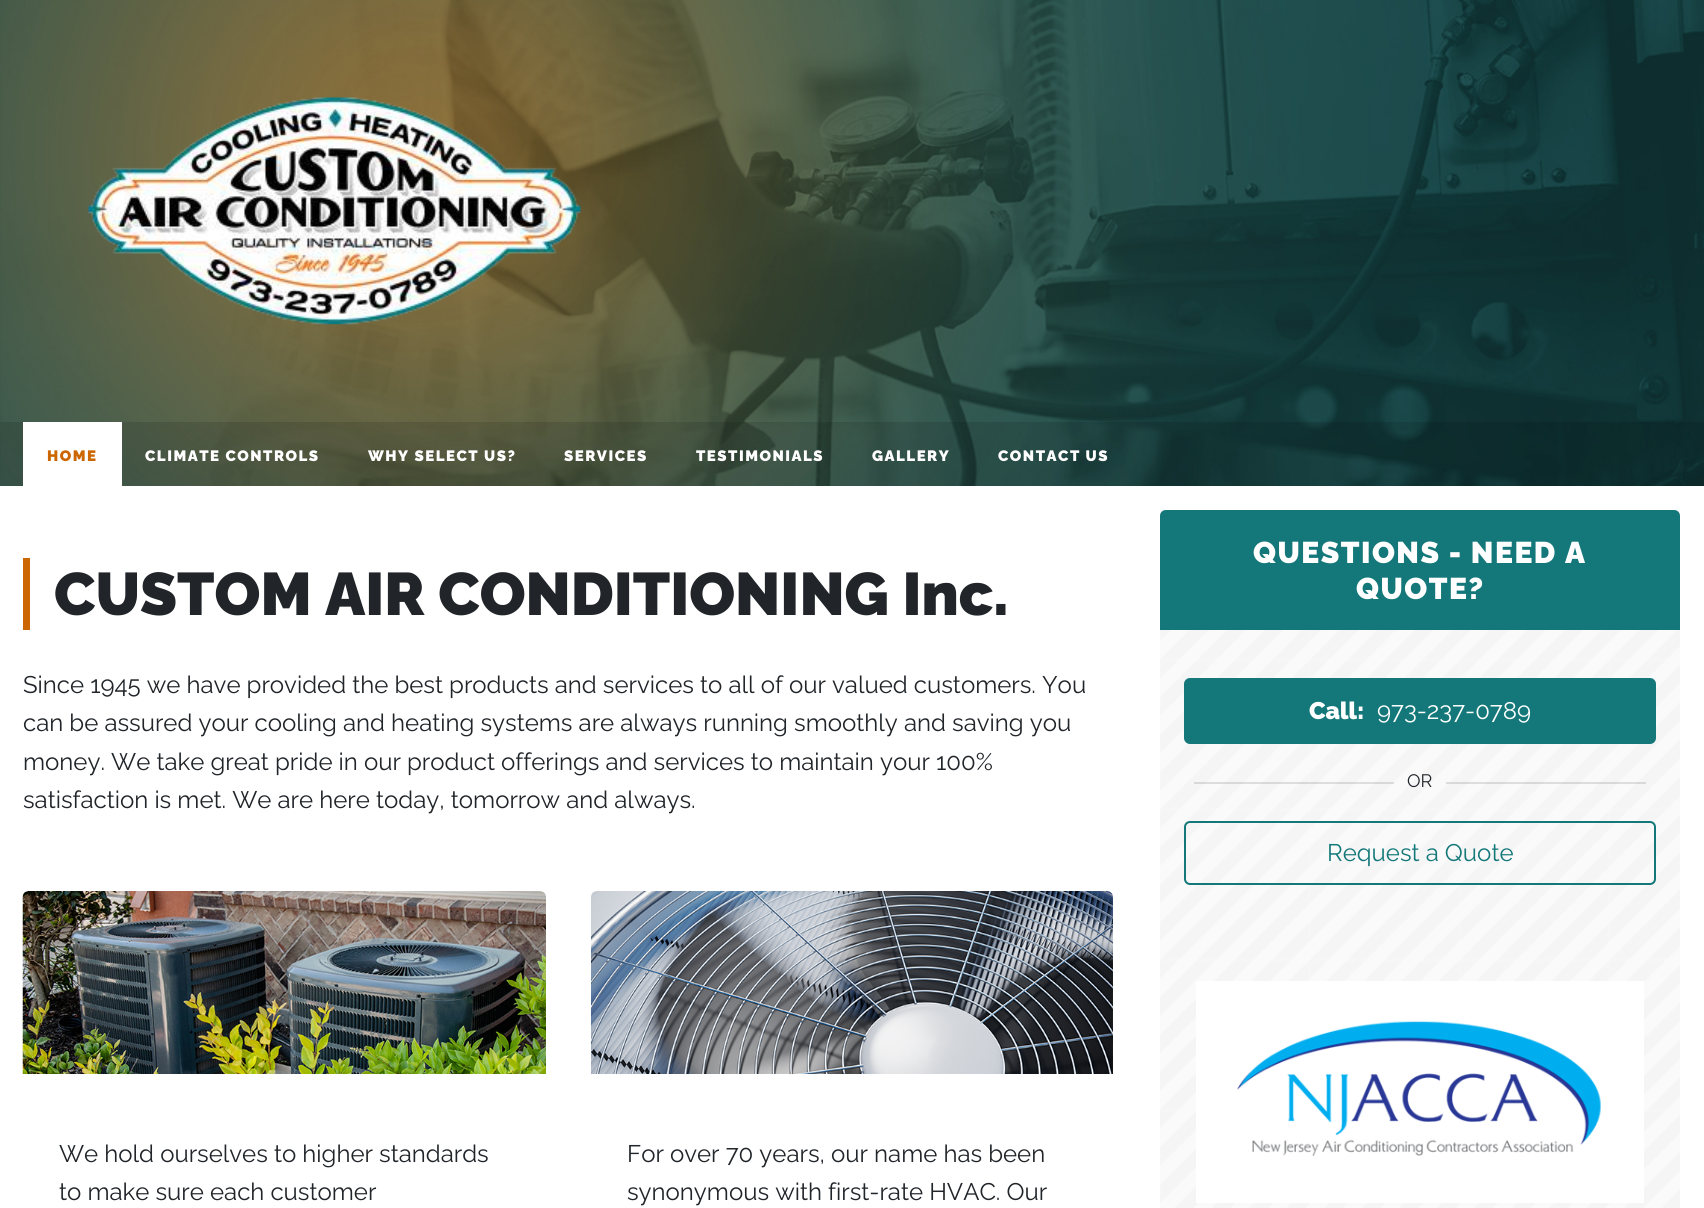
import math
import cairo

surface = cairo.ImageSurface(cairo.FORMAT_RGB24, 1704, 1208)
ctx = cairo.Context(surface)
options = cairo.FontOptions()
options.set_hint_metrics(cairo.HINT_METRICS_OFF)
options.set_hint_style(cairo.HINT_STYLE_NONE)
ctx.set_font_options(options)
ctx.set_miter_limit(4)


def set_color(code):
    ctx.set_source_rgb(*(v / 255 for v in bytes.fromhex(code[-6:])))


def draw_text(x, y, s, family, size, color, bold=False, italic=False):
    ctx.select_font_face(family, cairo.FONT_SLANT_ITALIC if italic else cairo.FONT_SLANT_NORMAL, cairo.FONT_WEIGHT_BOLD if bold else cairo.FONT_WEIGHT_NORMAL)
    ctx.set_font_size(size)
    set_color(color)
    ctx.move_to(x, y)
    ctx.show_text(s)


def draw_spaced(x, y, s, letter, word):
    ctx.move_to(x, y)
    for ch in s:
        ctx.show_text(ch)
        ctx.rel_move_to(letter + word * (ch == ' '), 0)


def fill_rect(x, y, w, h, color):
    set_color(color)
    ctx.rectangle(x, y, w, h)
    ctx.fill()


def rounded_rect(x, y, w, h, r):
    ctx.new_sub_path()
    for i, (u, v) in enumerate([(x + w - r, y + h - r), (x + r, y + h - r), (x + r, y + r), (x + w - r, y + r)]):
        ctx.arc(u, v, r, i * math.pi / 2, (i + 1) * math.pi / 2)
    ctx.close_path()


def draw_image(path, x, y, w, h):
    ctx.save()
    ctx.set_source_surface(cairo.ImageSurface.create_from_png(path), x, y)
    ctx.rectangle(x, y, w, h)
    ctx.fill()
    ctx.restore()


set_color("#ffffff")
ctx.paint()
draw_image("assets/img1.png", 0, 0, 1704, 486)
draw_image("assets/img2.png", 88, 97, 493, 228)
ctx.set_source_rgba(0, 0, 0, 0.12)
ctx.rectangle(0, 422, 1704, 64)
ctx.fill()
fill_rect(23, 422, 99, 64, "#ffffff")
ctx.select_font_face("Raleway Black")
ctx.set_font_size(15)
set_color("#cc6600")
draw_spaced(47, 461, "HOME", 1.5, 0)
set_color("#ffffff")
draw_spaced(145, 461, "CLIMATE CONTROLS", 1.5, 0)
draw_spaced(368, 461, "WHY SELECT US?", 1.5, 0)
draw_spaced(564, 461, "SERVICES", 1.5, 0)
draw_spaced(696, 461, "TESTIMONIALS", 1.5, 0)
draw_spaced(872, 461, "GALLERY", 1.5, 0)
draw_spaced(998, 461, "CONTACT US", 1.5, 0)
fill_rect(23, 558, 7, 72, "#cc6600")
draw_text(54, 615, "CUSTOM AIR CONDITIONING Inc.", "Raleway Black", 60, "#212529")
draw_text(23, 693, "Since 1945 we have provided the best products and services to all of our valued customers. You", "Raleway", 24, "#212529")
draw_text(23, 731, "can be assured your cooling and heating systems are always running smoothly and saving you", "Raleway", 24, "#212529")
draw_text(23, 770, "money. We take great pride in our product offerings and services to maintain your 100%", "Raleway", 24, "#212529")
draw_text(23, 808, "satisfaction is met. We are here today, tomorrow and always.", "Raleway", 24, "#212529")
draw_image("assets/img3.png", 22, 891, 524, 183)
draw_text(59, 1162, "We hold ourselves to higher standards", "Raleway", 24, "#212529")
draw_text(59, 1200, "to make sure each customer", "Raleway", 24, "#212529")
draw_image("assets/img4.png", 591, 891, 522, 183)
draw_text(627, 1162, "For over 70 years, our name has been", "Raleway", 24, "#212529")
draw_text(627, 1200, "synonymous with first-rate HVAC. Our", "Raleway", 24, "#212529")
draw_image("assets/img5.png", 1160, 510, 520, 698)
set_color("#14787a")
ctx.new_path()
ctx.move_to(1166, 510)
ctx.line_to(1674, 510)
ctx.curve_to(1677.5, 510, 1680, 512.5, 1680, 516)
ctx.line_to(1680, 630)
ctx.line_to(1160, 630)
ctx.line_to(1160, 516)
ctx.curve_to(1160, 512.5, 1162.5, 510, 1166, 510)
ctx.close_path()
ctx.fill()
ctx.select_font_face("Raleway Black")
ctx.set_font_size(30)
set_color("#ffffff")
draw_spaced(1253, 563, "QUESTIONS - NEED A", 1.5, 0)
draw_spaced(1356, 599, "QUOTE?", 1.5, 0)
set_color("#14787a")
rounded_rect(1185, 679, 470, 64, 5)
ctx.fill_preserve()
ctx.stroke()
draw_text(1309, 719, "Call:", "Raleway Black", 24, "#ffffff")
draw_text(1377, 719, "973-237-0789", "Raleway", 24, "#ffffff")
ctx.set_source_rgba(0, 0, 0, 0.12)
ctx.rectangle(1194, 782, 200, 2)
ctx.fill()
draw_text(1407, 787, "OR", "Raleway", 18, "#212529")
ctx.set_source_rgba(0, 0, 0, 0.12)
ctx.rectangle(1446, 782, 200, 2)
ctx.fill()
rounded_rect(1185, 822, 470, 62, 5)
set_color("#14787a")
ctx.stroke()
draw_text(1327, 861, "Request a Quote", "Raleway", 24, "#14787a")
fill_rect(1196, 981, 448, 222, "#ffffff")
draw_image("assets/img6.png", 1237, 1021, 364, 135)
surface.write_to_png("output.png")
